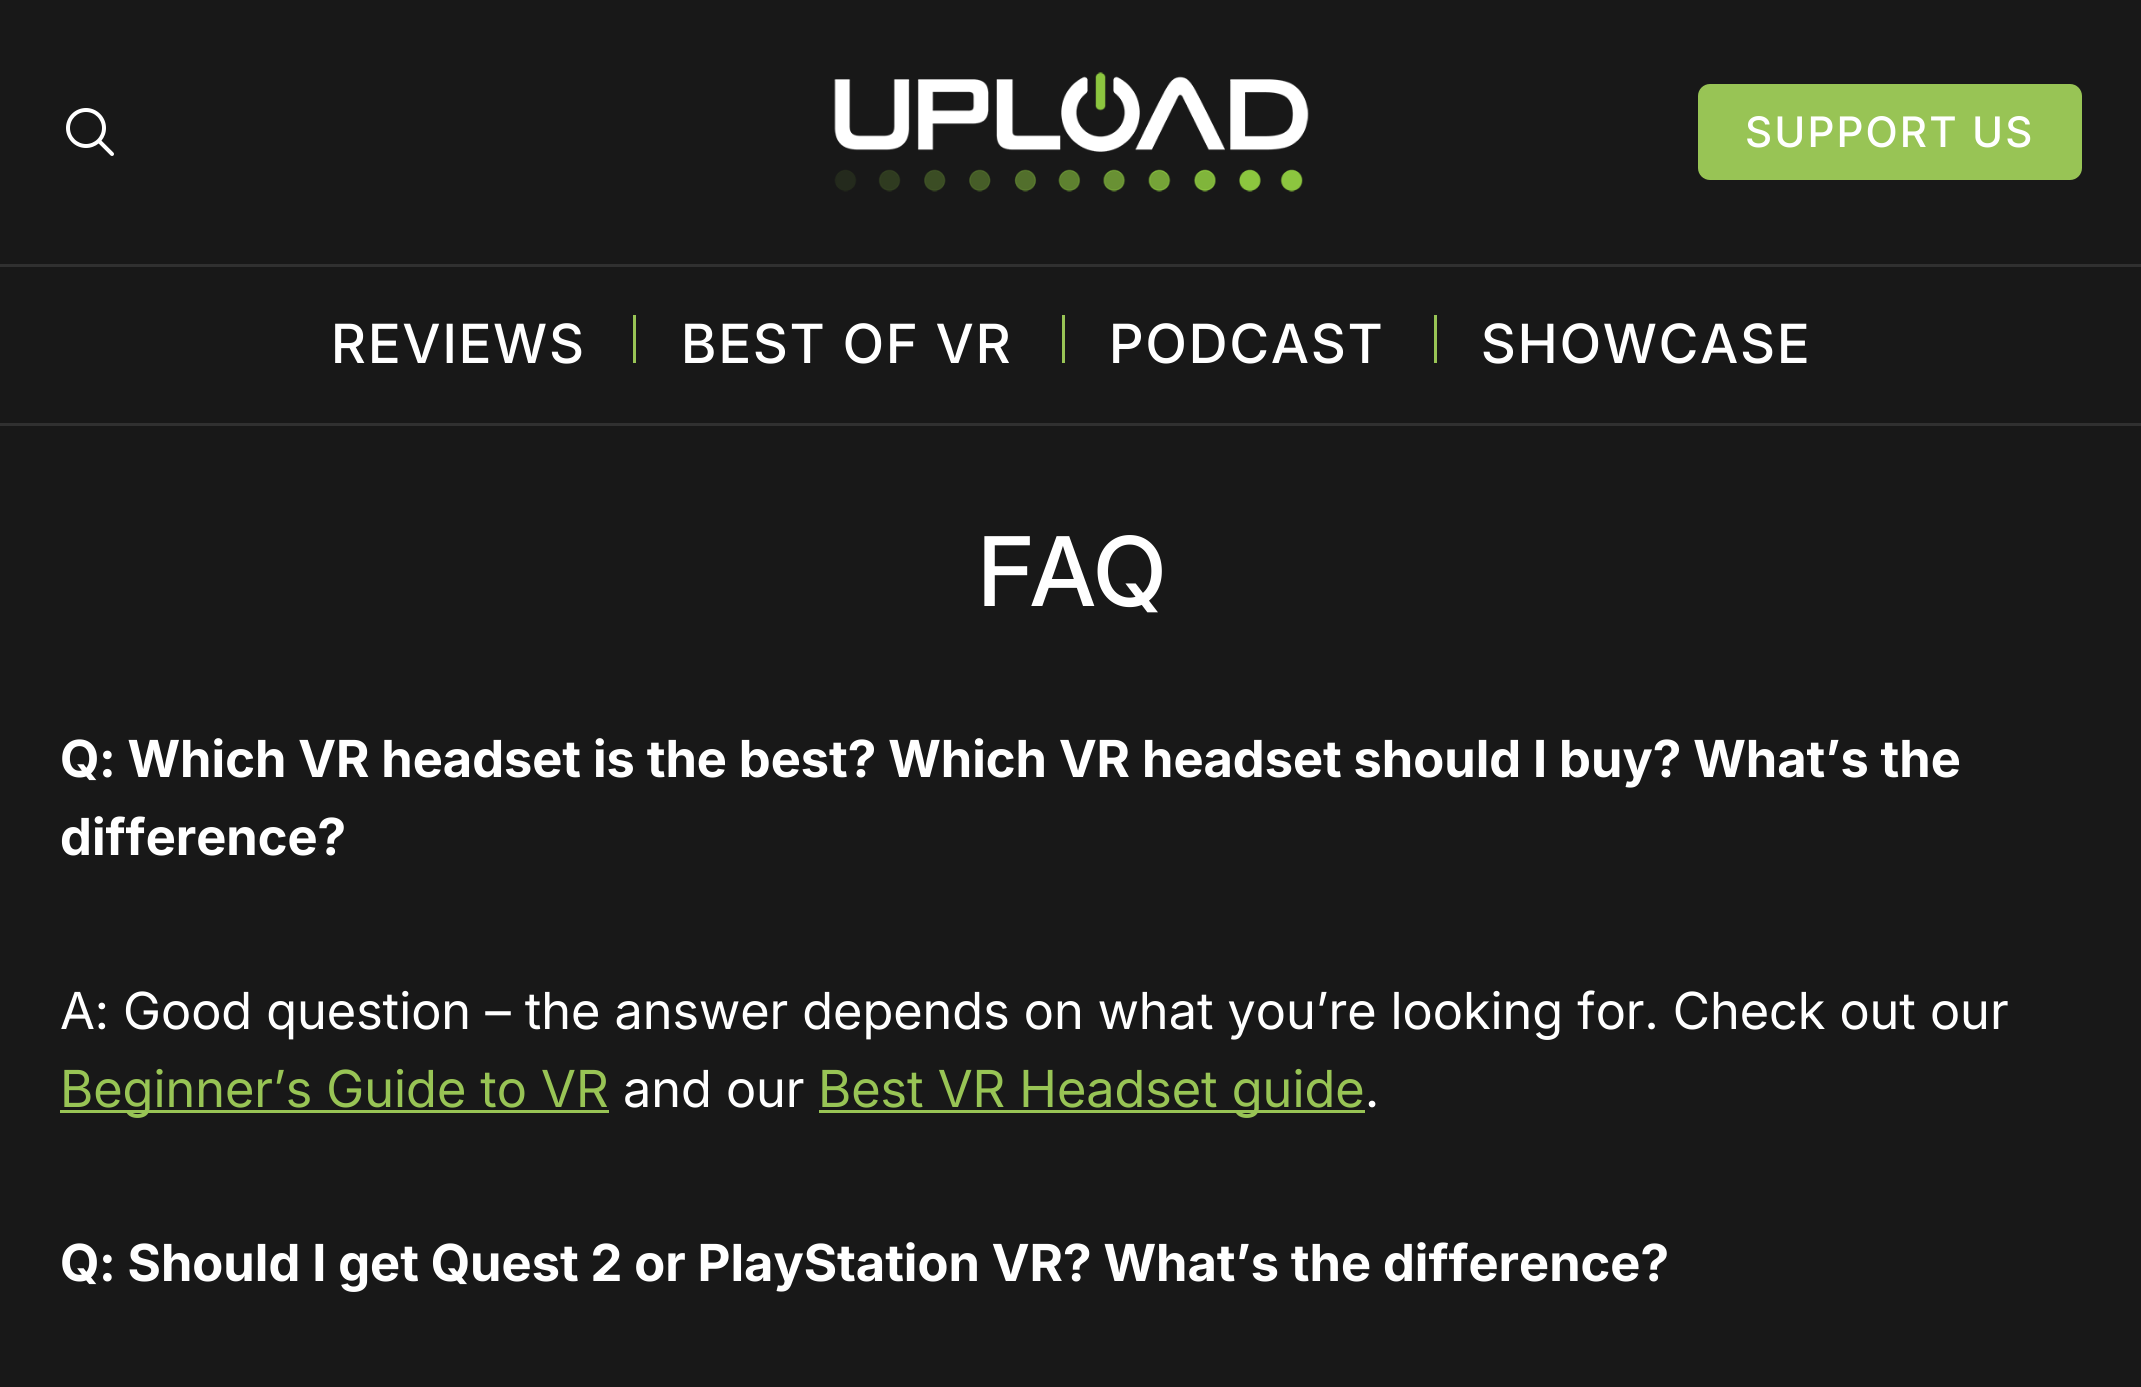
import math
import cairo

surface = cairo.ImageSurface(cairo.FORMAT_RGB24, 2141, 1387)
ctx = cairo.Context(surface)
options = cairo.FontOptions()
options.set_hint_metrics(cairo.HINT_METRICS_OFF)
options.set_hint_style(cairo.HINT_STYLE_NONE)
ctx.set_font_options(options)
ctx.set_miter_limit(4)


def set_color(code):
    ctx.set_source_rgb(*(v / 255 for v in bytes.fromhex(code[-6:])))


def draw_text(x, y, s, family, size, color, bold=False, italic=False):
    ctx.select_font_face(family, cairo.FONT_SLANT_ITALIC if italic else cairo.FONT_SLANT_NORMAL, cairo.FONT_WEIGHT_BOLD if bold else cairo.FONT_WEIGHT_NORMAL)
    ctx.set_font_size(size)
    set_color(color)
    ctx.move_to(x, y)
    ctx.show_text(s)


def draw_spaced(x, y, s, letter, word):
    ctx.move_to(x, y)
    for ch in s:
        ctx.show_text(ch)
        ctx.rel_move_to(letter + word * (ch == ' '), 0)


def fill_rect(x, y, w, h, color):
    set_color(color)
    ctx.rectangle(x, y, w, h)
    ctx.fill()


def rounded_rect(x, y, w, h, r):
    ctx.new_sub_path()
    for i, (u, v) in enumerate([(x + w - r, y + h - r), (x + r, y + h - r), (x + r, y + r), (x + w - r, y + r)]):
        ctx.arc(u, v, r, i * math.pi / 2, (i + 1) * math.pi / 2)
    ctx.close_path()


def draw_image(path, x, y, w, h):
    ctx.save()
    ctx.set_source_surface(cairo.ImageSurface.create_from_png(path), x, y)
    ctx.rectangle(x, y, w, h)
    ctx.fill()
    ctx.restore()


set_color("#181818")
ctx.paint()
fill_rect(0, 423, 2141, 3, "#303030")
fill_rect(0, 264, 2141, 3, "#303030")
draw_image("assets/img1.png", 66, 108, 48, 48)
draw_image("assets/img2.png", 834, 72, 475, 120)
set_color("#98c455")
rounded_rect(1698, 84, 384, 96, 12)
ctx.fill()
ctx.select_font_face("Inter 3 Medium")
ctx.set_font_size(42)
set_color("#ffffff")
draw_spaced(1745, 147, "SUPPORT US", 2.1, 0)
ctx.select_font_face("Inter Medium")
ctx.set_font_size(54)
draw_spaced(331, 363, "REVIEWS", 2.1, 0)
fill_rect(633, 315, 3, 48, "#98c455")
set_color("#ffffff")
draw_spaced(681, 363, "BEST OF VR", 2.1, 0)
fill_rect(1062, 315, 3, 48, "#98c455")
set_color("#ffffff")
draw_spaced(1109, 363, "PODCAST", 2.1, 0)
fill_rect(1434, 315, 3, 48, "#98c455")
set_color("#ffffff")
draw_spaced(1481, 363, "SHOWCASE", 2.1, 0)
ctx.select_font_face("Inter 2 Medium")
ctx.set_font_size(96)
draw_spaced(978, 606, "FAQ", -1.5, 0)
draw_text(60, 777, "Q: Which VR headset is the best? Which VR headset should I buy? What’s the", "Inter", 51, "#ffffff", bold=True)
draw_text(60, 855, "difference?", "Inter", 51, "#ffffff", bold=True)
draw_text(60, 1029, "A: Good question – the answer depends on what you’re looking for. Check out our", "Inter", 51, "#ffffff")
fill_rect(60, 1110, 549, 3, "#98c455")
draw_text(60, 1107, "Beginner’s Guide to VR", "Inter", 51, "#98c455")
draw_text(623, 1107, "and our", "Inter", 51, "#ffffff")
fill_rect(819, 1110, 546, 3, "#98c455")
draw_text(818, 1107, "Best VR Headset guide", "Inter", 51, "#98c455")
draw_text(1365, 1107, ".", "Inter", 51, "#ffffff")
draw_text(60, 1281, "Q: Should I get Quest 2 or PlayStation VR? What’s the difference?", "Inter", 51, "#ffffff", bold=True)
surface.write_to_png("output.png")
